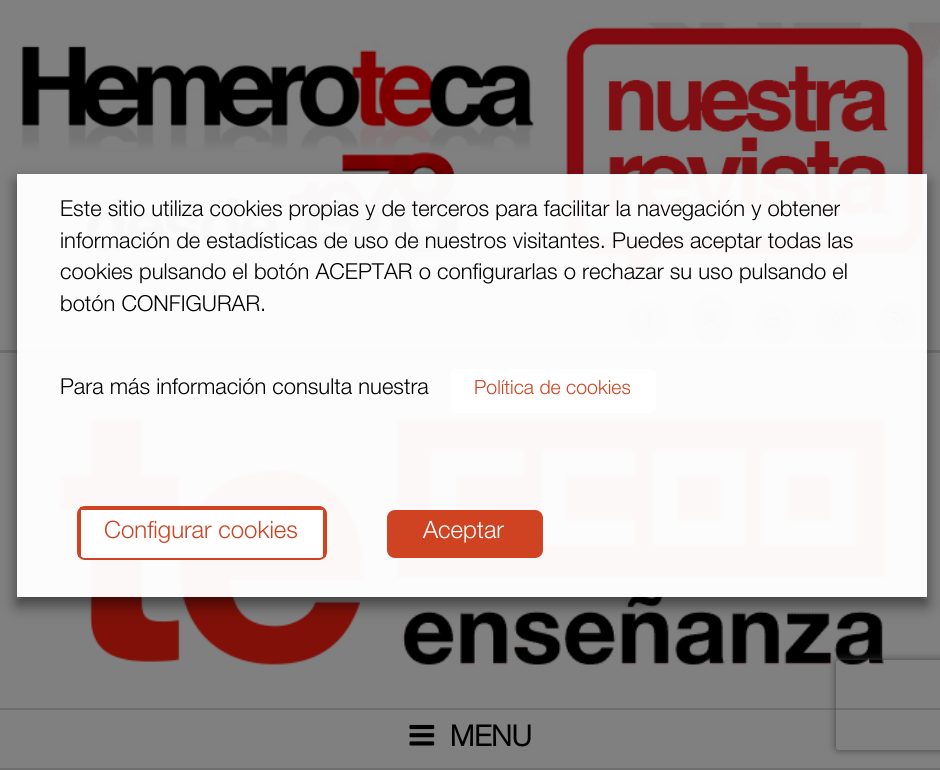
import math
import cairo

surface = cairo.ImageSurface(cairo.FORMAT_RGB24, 940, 770)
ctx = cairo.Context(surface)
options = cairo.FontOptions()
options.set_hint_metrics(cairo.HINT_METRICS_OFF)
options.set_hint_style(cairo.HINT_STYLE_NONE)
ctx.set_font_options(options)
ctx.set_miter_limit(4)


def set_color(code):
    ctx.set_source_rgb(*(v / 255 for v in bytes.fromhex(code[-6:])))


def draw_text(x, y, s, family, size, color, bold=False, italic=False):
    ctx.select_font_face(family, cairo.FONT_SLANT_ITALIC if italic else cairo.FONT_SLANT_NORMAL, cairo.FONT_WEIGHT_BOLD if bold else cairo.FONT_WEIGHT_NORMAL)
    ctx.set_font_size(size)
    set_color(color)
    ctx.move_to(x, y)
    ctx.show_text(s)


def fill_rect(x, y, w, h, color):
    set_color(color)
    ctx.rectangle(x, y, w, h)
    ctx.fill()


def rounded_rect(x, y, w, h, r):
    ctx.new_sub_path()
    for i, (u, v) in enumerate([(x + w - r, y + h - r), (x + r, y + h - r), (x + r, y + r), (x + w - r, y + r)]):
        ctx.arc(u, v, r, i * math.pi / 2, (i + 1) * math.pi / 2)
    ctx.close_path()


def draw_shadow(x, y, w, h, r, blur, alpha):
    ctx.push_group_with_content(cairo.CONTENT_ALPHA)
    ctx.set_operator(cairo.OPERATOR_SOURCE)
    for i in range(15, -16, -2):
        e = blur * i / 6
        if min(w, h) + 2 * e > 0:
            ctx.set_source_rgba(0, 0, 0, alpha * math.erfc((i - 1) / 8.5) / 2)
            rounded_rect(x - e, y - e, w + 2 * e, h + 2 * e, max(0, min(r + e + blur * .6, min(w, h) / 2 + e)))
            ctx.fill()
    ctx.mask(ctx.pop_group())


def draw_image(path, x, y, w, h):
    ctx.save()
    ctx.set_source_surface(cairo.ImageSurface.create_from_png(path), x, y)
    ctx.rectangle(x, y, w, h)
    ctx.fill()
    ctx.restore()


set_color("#808080")
ctx.paint()
draw_image("assets/img1.png", 607, 66, 283, 150)
draw_image("assets/img2.png", 21, 22, 919, 263)
fill_rect(0, 350, 940, 3, "#6e6e6e")
set_color("#7c7b7b")
rounded_rect(629, 302, 40, 42, 20)
ctx.fill()
draw_image("assets/img3.png", 644, 309, 10, 18)
ctx.new_path()
ctx.move_to(712, 294)
ctx.curve_to(723, 294, 732, 305, 732, 319)
ctx.curve_to(732, 333, 723, 344, 712, 344)
ctx.curve_to(701, 344, 692, 333, 692, 319)
ctx.curve_to(692, 305, 701, 294, 712, 294)
ctx.close_path()
ctx.fill()
draw_image("assets/img4.png", 700, 308, 22, 20)
rounded_rect(753, 302, 41, 42, 20.5)
ctx.fill()
draw_image("assets/img5.png", 765, 309, 17, 20)
rounded_rect(816, 302, 41, 42, 20.5)
ctx.fill()
draw_image("assets/img6.png", 828, 310, 17, 17)
rounded_rect(878, 302, 40, 42, 20)
ctx.fill()
draw_image("assets/img7.png", 889, 310, 16, 16)
draw_image("assets/img8.png", 59, 418, 827, 247)
ctx.save()
ctx.set_fill_rule(cairo.FILL_RULE_EVEN_ODD)
ctx.new_path()
ctx.move_to(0, 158)
ctx.line_to(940, 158)
ctx.line_to(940, 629)
ctx.line_to(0, 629)
ctx.close_path()
ctx.move_to(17, 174)
ctx.line_to(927, 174)
ctx.line_to(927, 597)
ctx.line_to(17, 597)
ctx.close_path()
ctx.clip()
set_color("#000000")
draw_shadow(17, 182, 910, 423, 0, 7.5, 0.5)
ctx.restore()
ctx.set_source_rgba(1, 1, 1, 0.97)
ctx.rectangle(17, 174, 910, 423)
ctx.fill()
draw_text(60, 216, "Este sitio utiliza cookies propias y de terceros para facilitar la navegación y obtener", "Helvetica Neue Light", 22, "#000000")
draw_text(60, 248, "información de estadísticas de uso de nuestros visitantes. Puedes aceptar todas las", "Helvetica Neue Light", 22, "#000000")
draw_text(60, 279, "cookies pulsando el botón ACEPTAR o configurarlas o rechazar su uso pulsando el", "Helvetica Neue Light", 22, "#000000")
draw_text(60, 311, "botón CONFIGURAR.", "Helvetica Neue Light", 22, "#000000")
draw_text(60, 394, "Para más información consulta nuestra", "Helvetica Neue Light", 22, "#000000")
set_color("#ffffff")
rounded_rect(450, 369, 206, 44, 6)
ctx.fill()
draw_text(474, 394, "Política de cookies", "Helvetica Neue Light", 19.5, "#cf4322")
set_color("#ffffff")
ctx.new_path()
ctx.move_to(83, 510)
ctx.line_to(319, 510)
ctx.curve_to(320, 510, 322, 512, 322, 513)
ctx.line_to(322, 552)
ctx.curve_to(322, 556, 320, 558, 319, 558)
ctx.line_to(83, 558)
ctx.curve_to(82, 558, 80, 556, 80, 552)
ctx.line_to(80, 513)
ctx.curve_to(80, 512, 82, 510, 83, 510)
ctx.close_path()
ctx.fill()
rounded_rect(78, 507, 248, 52, 7)
set_color("#cf4322")
ctx.stroke()
fill_rect(80, 507, 243, 3, "#cf4322")
fill_rect(323, 510, 3, 47, "#cf4322")
fill_rect(78, 510, 3, 47, "#cf4322")
draw_text(104, 538, "Configurar cookies", "Helvetica Neue Light", 24, "#cf4322")
rounded_rect(387, 510, 156, 48, 8)
ctx.fill()
draw_text(423, 538, "Aceptar", "Helvetica Neue Light", 24, "#ffffff")
fill_rect(0, 708, 940, 2, "#6e6e6e")
fill_rect(0, 768, 940, 2, "#6e6e6e")
draw_image("assets/img9.png", 409, 724, 26, 22)
draw_text(450, 746, "MENU", "Helvetica Neue", 29, "#000000", bold=True)
ctx.save()
ctx.set_fill_rule(cairo.FILL_RULE_EVEN_ODD)
ctx.new_path()
ctx.move_to(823, 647)
ctx.line_to(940, 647)
ctx.line_to(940, 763)
ctx.line_to(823, 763)
ctx.close_path()
ctx.move_to(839, 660)
ctx.line_to(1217, 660)
ctx.curve_to(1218.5, 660, 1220, 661.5, 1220, 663)
ctx.line_to(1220, 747)
ctx.curve_to(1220, 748.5, 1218.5, 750, 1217, 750)
ctx.line_to(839, 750)
ctx.curve_to(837.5, 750, 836, 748.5, 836, 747)
ctx.line_to(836, 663)
ctx.curve_to(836, 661.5, 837.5, 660, 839, 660)
ctx.close_path()
ctx.clip()
set_color("#404040")
draw_shadow(836, 660, 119, 90, 3, 4, 1)
ctx.restore()
surface.write_to_png("output.png")
